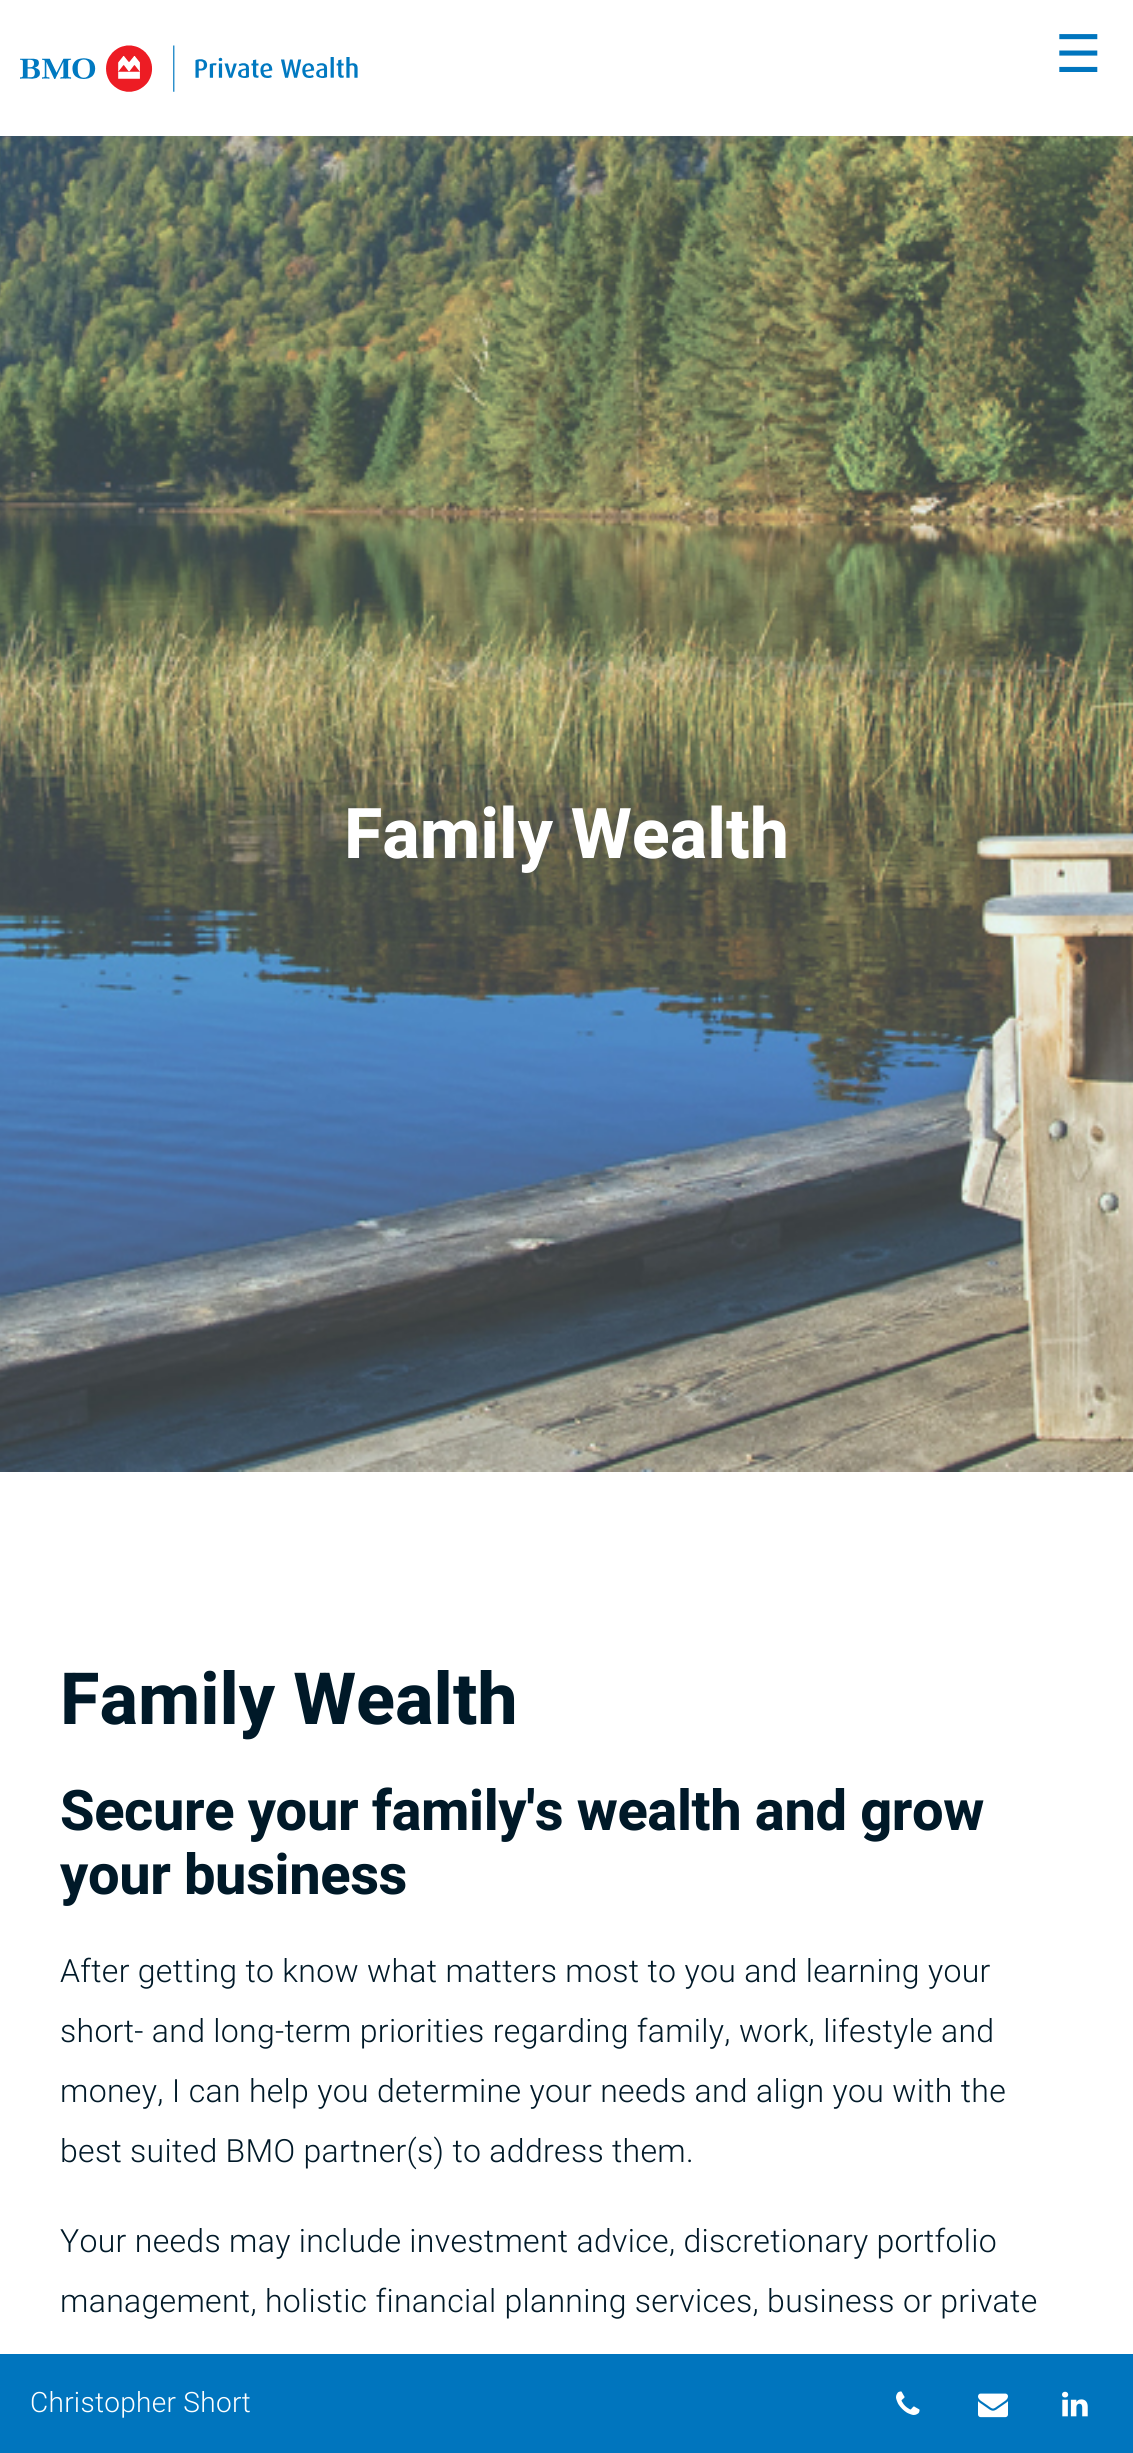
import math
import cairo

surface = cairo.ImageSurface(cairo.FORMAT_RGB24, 1133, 2453)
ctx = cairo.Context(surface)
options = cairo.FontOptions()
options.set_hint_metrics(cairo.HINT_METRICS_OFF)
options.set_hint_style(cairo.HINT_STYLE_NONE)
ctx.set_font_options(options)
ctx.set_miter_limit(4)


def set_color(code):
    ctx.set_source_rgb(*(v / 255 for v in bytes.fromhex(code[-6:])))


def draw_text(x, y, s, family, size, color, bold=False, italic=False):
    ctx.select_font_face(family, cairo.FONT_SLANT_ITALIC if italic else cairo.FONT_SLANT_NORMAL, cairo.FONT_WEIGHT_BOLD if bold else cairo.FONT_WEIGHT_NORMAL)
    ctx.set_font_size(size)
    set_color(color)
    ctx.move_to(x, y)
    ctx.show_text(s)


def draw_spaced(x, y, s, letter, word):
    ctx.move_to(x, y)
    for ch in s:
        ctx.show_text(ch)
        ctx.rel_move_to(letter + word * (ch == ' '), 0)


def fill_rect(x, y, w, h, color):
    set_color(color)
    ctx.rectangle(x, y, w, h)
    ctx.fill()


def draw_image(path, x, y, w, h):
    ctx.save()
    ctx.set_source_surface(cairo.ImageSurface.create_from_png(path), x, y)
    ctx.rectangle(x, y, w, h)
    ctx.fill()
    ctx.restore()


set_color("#ffffff")
ctx.paint()
draw_image("assets/img1.png", 20, 45, 338, 47)
draw_text(1055, 72, "☰", "DejaVu Sans", 52, "#0075be")
draw_image("assets/img2.png", 0, 136, 1133, 1336)
draw_text(344, 858, "Family Wealth", "Heebo", 70, "#ffffff", bold=True)
draw_text(60, 1724, "Family Wealth", "Heebo", 72, "#001928", bold=True)
ctx.set_font_size(56)
draw_spaced(60, 1830, "Secure your family's wealth and grow", -0.4, 0)
draw_spaced(60, 1894, "your business", -0.4, 0)
ctx.select_font_face("Heebo Light")
ctx.set_font_size(32)
draw_spaced(60, 1982, "After getting to know what matters most to you and learning your", 0.3, 0)
draw_spaced(60, 2042, "short- and long-term priorities regarding family, work, lifestyle and", 0.3, 0)
draw_spaced(60, 2102, "money, I can help you determine your needs and align you with the", 0.3, 0)
draw_spaced(60, 2162, "best suited BMO partner(s) to address them.", 0.3, 0)
draw_spaced(60, 2252, "Your needs may include investment advice, discretionary portfolio", 0.3, 0)
draw_spaced(60, 2312, "management, holistic financial planning services, business or private", 0.3, 0)
fill_rect(0, 2354, 1133, 99, "#0075be")
ctx.set_font_size(28)
set_color("#ffffff")
draw_spaced(30, 2412, "Christopher Short", 0.3, 0)
draw_image("assets/img3.png", 896, 2391, 24, 24)
draw_image("assets/img4.png", 978, 2393, 30, 25)
draw_image("assets/img5.png", 1062, 2391, 26, 26)
surface.write_to_png("output.png")
